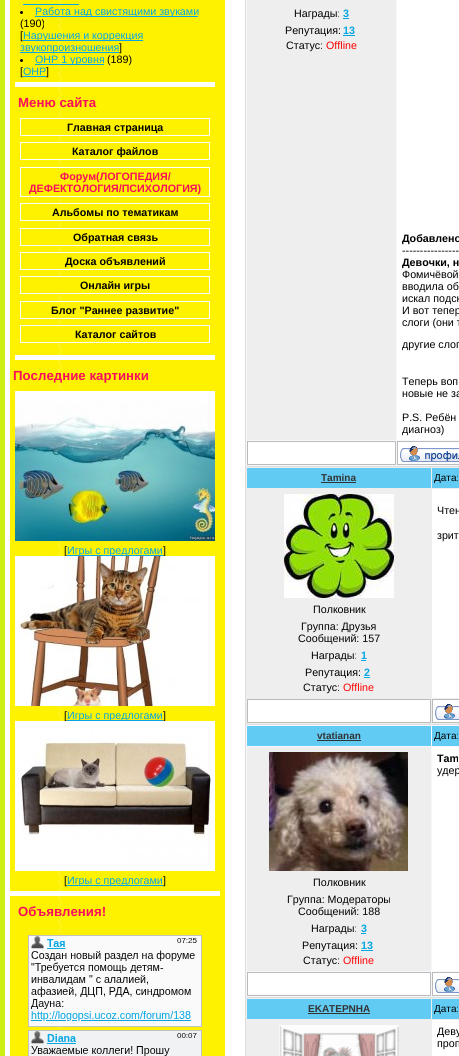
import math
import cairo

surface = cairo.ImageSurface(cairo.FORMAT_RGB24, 459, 1056)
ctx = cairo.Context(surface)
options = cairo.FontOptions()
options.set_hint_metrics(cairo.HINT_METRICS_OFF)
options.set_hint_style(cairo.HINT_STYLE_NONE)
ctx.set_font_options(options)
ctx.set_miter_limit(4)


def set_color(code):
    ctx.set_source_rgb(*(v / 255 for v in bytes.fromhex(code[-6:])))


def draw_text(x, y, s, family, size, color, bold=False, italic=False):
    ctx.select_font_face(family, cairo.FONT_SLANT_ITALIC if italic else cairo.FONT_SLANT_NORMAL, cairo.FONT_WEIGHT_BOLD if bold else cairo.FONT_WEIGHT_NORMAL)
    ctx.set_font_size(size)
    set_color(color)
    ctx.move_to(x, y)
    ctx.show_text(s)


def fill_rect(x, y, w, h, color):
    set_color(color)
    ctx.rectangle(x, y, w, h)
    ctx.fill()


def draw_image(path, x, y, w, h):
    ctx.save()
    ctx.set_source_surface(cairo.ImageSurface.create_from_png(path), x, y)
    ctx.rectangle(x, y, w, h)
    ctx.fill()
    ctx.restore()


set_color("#ceef12")
ctx.paint()
draw_image("assets/img1.png", 5, 0, 220, 1056)
fill_rect(15, 82, 200, 5, "#ffffff")
fill_rect(23, 4, 56, 1, "#04a6e3")
set_color("#000000")
ctx.arc(21.5, 12.5, 1.5, 0, 2 * math.pi)
ctx.fill()
fill_rect(35, 16, 163, 1, "#04a6e3")
draw_text(35, 15, "Работа над свистящими звуками", "Liberation Sans", 10.7, "#04a6e3")
draw_text(20, 27, "(190)", "Liberation Sans", 10.7, "#000000")
draw_text(20, 39, "[", "Liberation Sans", 10.7, "#000000")
fill_rect(23, 40, 120, 1, "#04a6e3")
draw_text(23, 39, "Нарушения и коррекция", "Liberation Sans", 10.7, "#04a6e3")
fill_rect(20, 52, 99, 1, "#04a6e3")
draw_text(20, 51, "звукопроизношения", "Liberation Sans", 10.7, "#04a6e3")
draw_text(119, 51, "]", "Liberation Sans", 10.7, "#000000")
ctx.new_path()
ctx.arc(21.5, 60.5, 1.5, 0, 2 * math.pi)
ctx.fill()
fill_rect(35, 64, 69, 1, "#04a6e3")
draw_text(35, 63, "ОНР 1 уровня", "Liberation Sans", 10.7, "#04a6e3")
draw_text(107, 63, "(189)", "Liberation Sans", 10.7, "#000000")
draw_text(20, 75, "[", "Liberation Sans", 10.7, "#000000")
draw_text(23, 75, "ОНР", "Liberation Sans", 10.7, "#04a6e3")
fill_rect(23, 76, 23, 1, "#04a6e3")
draw_text(46, 75, "]", "Liberation Sans", 10.7, "#000000")
fill_rect(15, 355, 200, 5, "#ffffff")
draw_text(18, 107, "Меню сайта", "Liberation Sans", 13.25, "#fb0d5d", bold=True)
fill_rect(57, 119, 6, 16, "#fff200")
ctx.rectangle(20.5, 118.5, 189, 17)
set_color("#ffffff")
ctx.set_line_width(1)
ctx.stroke()
draw_text(67, 131, "Главная страница", "Liberation Sans", 10.7, "#000000", bold=True)
fill_rect(57, 143, 6, 16, "#fff200")
ctx.rectangle(20.5, 142.5, 189, 17)
set_color("#ffffff")
ctx.stroke()
draw_text(72, 155, "Каталог файлов", "Liberation Sans", 10.7, "#000000", bold=True)
fill_rect(57, 168, 6, 28, "#fff200")
ctx.rectangle(20.5, 167.5, 189, 29)
set_color("#ffffff")
ctx.stroke()
draw_text(60, 180, "Форум(ЛОГОПЕДИЯ/", "Liberation Sans", 10.7, "#fb0d5d", bold=True)
draw_text(29, 192, "ДЕФЕКТОЛОГИЯ/ПСИХОЛОГИЯ)", "Liberation Sans", 10.7, "#fb0d5d", bold=True)
fill_rect(57, 204, 6, 16, "#fff200")
ctx.rectangle(20.5, 203.5, 189, 17)
set_color("#ffffff")
ctx.stroke()
draw_text(52, 216, "Альбомы по тематикам", "Liberation Sans", 10.7, "#000000", bold=True)
fill_rect(57, 229, 6, 16, "#fff200")
ctx.rectangle(20.5, 228.5, 189, 17)
set_color("#ffffff")
ctx.stroke()
draw_text(73, 241, "Обратная связь", "Liberation Sans", 10.7, "#000000", bold=True)
fill_rect(57, 253, 6, 16, "#fff200")
ctx.rectangle(20.5, 252.5, 189, 17)
set_color("#ffffff")
ctx.stroke()
draw_text(65, 265, "Доска объявлений", "Liberation Sans", 10.7, "#000000", bold=True)
fill_rect(57, 277, 6, 16, "#fff200")
ctx.rectangle(20.5, 276.5, 189, 17)
set_color("#ffffff")
ctx.stroke()
draw_text(80, 289, "Онлайн игры", "Liberation Sans", 10.7, "#000000", bold=True)
fill_rect(57, 302, 6, 16, "#fff200")
ctx.rectangle(20.5, 301.5, 189, 17)
set_color("#ffffff")
ctx.stroke()
draw_text(51, 314, "Блог \"Раннее развитие\"", "Liberation Sans", 10.7, "#000000", bold=True)
fill_rect(57, 326, 6, 16, "#fff200")
ctx.rectangle(20.5, 325.5, 189, 17)
set_color("#ffffff")
ctx.stroke()
draw_text(75, 338, "Каталог сайтов", "Liberation Sans", 10.7, "#000000", bold=True)
fill_rect(10, 891, 210, 5, "#ffffff")
draw_text(13, 380, "Последние картинки", "Liberation Sans", 13.25, "#fb0d5d", bold=True)
draw_image("assets/img2.png", 15, 391, 200, 150)
draw_text(64, 554, "[", "Liberation Sans", 10.7, "#000000")
fill_rect(67, 555, 96, 1, "#04a6e3")
draw_text(67, 554, "Игры с предлогами", "Liberation Sans", 10.7, "#04a6e3")
draw_text(163, 554, "]", "Liberation Sans", 10.7, "#000000")
draw_image("assets/img3.png", 15, 556, 200, 150)
draw_text(64, 719, "[", "Liberation Sans", 10.7, "#000000")
fill_rect(67, 720, 96, 1, "#04a6e3")
draw_text(67, 719, "Игры с предлогами", "Liberation Sans", 10.7, "#04a6e3")
draw_text(163, 719, "]", "Liberation Sans", 10.7, "#000000")
draw_image("assets/img4.png", 15, 721, 200, 150)
draw_text(64, 884, "[", "Liberation Sans", 10.7, "#000000")
fill_rect(67, 885, 96, 1, "#04a6e3")
draw_text(67, 884, "Игры с предлогами", "Liberation Sans", 10.7, "#04a6e3")
draw_text(163, 884, "]", "Liberation Sans", 10.7, "#000000")
draw_text(18, 916, "Объявления!", "Liberation Sans", 13.25, "#fb0d5d", bold=True)
draw_image("assets/img5.png", 28, 935, 174, 121)
fill_rect(225, 0, 20, 1056, "#ffffff")
fill_rect(245, 0, 214, 1056, "#dddddd")
fill_rect(246, 0, 213, 466, "#f5f9fd")
fill_rect(247, 0, 149, 440, "#eeeeee")
draw_text(294, 17, "Награды:", "Liberation Sans", 10.7, "#000000")
draw_text(343, 17, "3", "Liberation Sans", 10.7, "#04a6e3", bold=True)
fill_rect(343, 18, 6, 1, "#04a6e3")
draw_text(285, 34, "Репутация:", "Liberation Sans", 10.7, "#000000")
draw_text(343, 34, "13", "Liberation Sans", 10.7, "#04a6e3", bold=True)
fill_rect(343, 35, 12, 1, "#04a6e3")
draw_text(286, 49, "Статус:", "Liberation Sans", 10.7, "#000000")
draw_text(326, 49, "Offline", "Liberation Sans", 10.7, "#ff0000")
fill_rect(397, 0, 62, 440, "#ffffff")
draw_text(402, 242, "Добавлено", "Liberation Sans", 10.7, "#000000", bold=True)
draw_text(402, 254, "----------------", "Liberation Sans", 10.7, "#000000")
draw_text(402, 266, "Девочки, н", "Liberation Sans", 10.7, "#000000", bold=True)
draw_text(402, 278, "Фомичёвой", "Liberation Sans", 10.7, "#000000")
draw_text(402, 290, "вводила об", "Liberation Sans", 10.7, "#000000")
draw_text(402, 302, "искал подск", "Liberation Sans", 10.7, "#000000")
draw_text(402, 314, "И вот тепер", "Liberation Sans", 10.7, "#000000")
draw_text(402, 326, "слоги (они т", "Liberation Sans", 10.7, "#000000")
draw_text(402, 348, "другие слог", "Liberation Sans", 10.7, "#000000")
draw_text(402, 385, "Теперь воп", "Liberation Sans", 10.7, "#000000")
draw_text(402, 397, "новые не за", "Liberation Sans", 10.7, "#000000")
draw_text(402, 421, "P.S. Ребён", "Liberation Sans", 10.7, "#000000")
draw_text(402, 433, "диагноз)", "Liberation Sans", 10.7, "#000000")
set_color("#ffffff")
ctx.rectangle(247.5, 441.5, 148, 23)
ctx.fill_preserve()
set_color("#bbbbbb")
ctx.stroke()
set_color("#ffffff")
ctx.rectangle(397.5, 441.5, 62, 23)
ctx.fill_preserve()
set_color("#bbbbbb")
ctx.stroke()
draw_image("assets/img6.png", 400, 446, 59, 16)
fill_rect(246, 467, 213, 257, "#eeeeee")
fill_rect(247, 468, 184, 20, "#61cbf4")
draw_text(321, 481, "Tamina", "Liberation Sans", 10, "#333333", bold=True)
fill_rect(321, 482, 35, 1, "#333333")
fill_rect(432, 468, 27, 20, "#61cbf4")
draw_text(434, 481, "Дата:", "Liberation Sans", 10, "#000000")
fill_rect(432, 489, 27, 209, "#ffffff")
draw_text(437, 514, "Чтен", "Liberation Sans", 10.7, "#000000")
draw_text(437, 539, "зрит", "Liberation Sans", 10.7, "#000000")
draw_image("assets/img7.png", 284, 494, 110, 104)
draw_text(313, 613, "Полковник", "Liberation Sans", 10.7, "#000000")
draw_text(301, 630, "Группа: Друзья", "Liberation Sans", 10.7, "#000000")
draw_text(298, 642, "Сообщений: 157", "Liberation Sans", 10.7, "#000000")
draw_text(311, 659, "Награды:", "Liberation Sans", 10.7, "#000000")
draw_text(361, 659, "1", "Liberation Sans", 10.7, "#04a6e3", bold=True)
fill_rect(361, 660, 5, 1, "#04a6e3")
draw_text(305, 676, "Репутация:", "Liberation Sans", 10.7, "#000000")
draw_text(364, 676, "2", "Liberation Sans", 10.7, "#04a6e3", bold=True)
fill_rect(364, 677, 6, 1, "#04a6e3")
draw_text(303, 691, "Статус:", "Liberation Sans", 10.7, "#000000")
draw_text(343, 691, "Offline", "Liberation Sans", 10.7, "#ff0000")
set_color("#ffffff")
ctx.rectangle(247.5, 699.5, 183, 23)
ctx.fill_preserve()
set_color("#bbbbbb")
ctx.stroke()
set_color("#ffffff")
ctx.rectangle(432.5, 699.5, 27, 23)
ctx.fill_preserve()
set_color("#bbbbbb")
ctx.stroke()
draw_image("assets/img8.png", 435, 704, 24, 16)
fill_rect(246, 725, 213, 272, "#f5f9fd")
fill_rect(247, 726, 184, 20, "#61cbf4")
draw_text(317, 739, "vtatianan", "Liberation Sans", 10, "#333333", bold=True)
fill_rect(317, 740, 44, 1, "#333333")
fill_rect(432, 726, 27, 20, "#61cbf4")
draw_text(434, 739, "Дата:", "Liberation Sans", 10, "#000000")
fill_rect(432, 747, 27, 224, "#ffffff")
draw_text(437, 762, "Tam", "Liberation Sans", 10.7, "#000000", bold=True)
draw_text(437, 774, "удер", "Liberation Sans", 10.7, "#000000")
fill_rect(247, 747, 184, 224, "#eeeeee")
draw_image("assets/img9.png", 269, 752, 139, 119)
draw_text(313, 886, "Полковник", "Liberation Sans", 10.7, "#000000")
draw_text(287, 903, "Группа: Модераторы", "Liberation Sans", 10.7, "#000000")
draw_text(298, 915, "Сообщений: 188", "Liberation Sans", 10.7, "#000000")
draw_text(311, 932, "Награды:", "Liberation Sans", 10.7, "#000000")
draw_text(361, 932, "3", "Liberation Sans", 10.7, "#04a6e3", bold=True)
fill_rect(361, 933, 5, 1, "#04a6e3")
draw_text(302, 949, "Репутация:", "Liberation Sans", 10.7, "#000000")
draw_text(361, 949, "13", "Liberation Sans", 10.7, "#04a6e3", bold=True)
fill_rect(361, 950, 12, 1, "#04a6e3")
draw_text(303, 964, "Статус:", "Liberation Sans", 10.7, "#000000")
draw_text(343, 964, "Offline", "Liberation Sans", 10.7, "#ff0000")
set_color("#ffffff")
ctx.rectangle(247.5, 972.5, 183, 23)
ctx.fill_preserve()
set_color("#bbbbbb")
ctx.stroke()
set_color("#ffffff")
ctx.rectangle(432.5, 972.5, 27, 23)
ctx.fill_preserve()
set_color("#bbbbbb")
ctx.stroke()
draw_image("assets/img8.png", 435, 977, 24, 16)
fill_rect(246, 998, 213, 58, "#eeeeee")
fill_rect(247, 999, 184, 20, "#61cbf4")
draw_text(308, 1012, "EKATEPNHA", "Liberation Sans", 10, "#333333", bold=True)
fill_rect(308, 1013, 62, 1, "#333333")
fill_rect(432, 999, 27, 20, "#61cbf4")
draw_text(434, 1012, "Дата:", "Liberation Sans", 10, "#000000")
draw_image("assets/img10.png", 279, 1025, 120, 31)
fill_rect(432, 1020, 27, 36, "#ffffff")
draw_text(437, 1035, "Деву", "Liberation Sans", 10.7, "#000000")
draw_text(437, 1047, "проп", "Liberation Sans", 10.7, "#000000")
surface.write_to_png("output.png")
